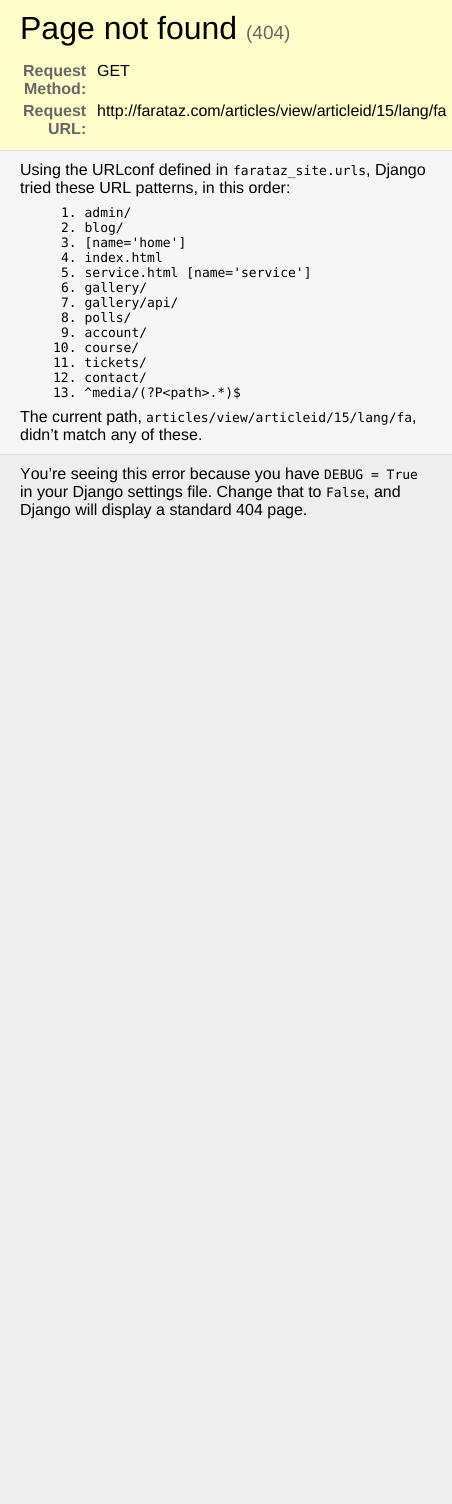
import math
import cairo

surface = cairo.ImageSurface(cairo.FORMAT_RGB24, 452, 1504)
ctx = cairo.Context(surface)
options = cairo.FontOptions()
options.set_hint_metrics(cairo.HINT_METRICS_OFF)
options.set_hint_style(cairo.HINT_STYLE_NONE)
ctx.set_font_options(options)
ctx.set_miter_limit(4)


def set_color(code):
    ctx.set_source_rgb(*(v / 255 for v in bytes.fromhex(code[-6:])))


def draw_text(x, y, s, family, size, color, bold=False, italic=False):
    ctx.select_font_face(family, cairo.FONT_SLANT_ITALIC if italic else cairo.FONT_SLANT_NORMAL, cairo.FONT_WEIGHT_BOLD if bold else cairo.FONT_WEIGHT_NORMAL)
    ctx.set_font_size(size)
    set_color(color)
    ctx.move_to(x, y)
    ctx.show_text(s)


def fill_rect(x, y, w, h, color):
    set_color(color)
    ctx.rectangle(x, y, w, h)
    ctx.fill()


set_color("#eeeeee")
ctx.paint()
fill_rect(0, 0, 452, 150, "#ffffcc")
fill_rect(0, 150, 452, 1, "#dddddd")
draw_text(20, 39, "Page not found", "Liberation Sans", 32, "#000000")
draw_text(246, 39, "(404)", "Liberation Sans", 19, "#666666")
draw_text(23, 76, "Request", "Liberation Sans", 16, "#666666", bold=True)
draw_text(24, 94, "Method:", "Liberation Sans", 16, "#666666", bold=True)
draw_text(97, 76, "GET", "Liberation Sans", 16, "#000000")
draw_text(23, 116, "Request", "Liberation Sans", 16, "#666666", bold=True)
draw_text(48, 134, "URL:", "Liberation Sans", 16, "#666666", bold=True)
draw_text(97, 116, "http://farataz.com/articles/view/articleid/15/lang/fa", "Liberation Sans", 16, "#000000")
fill_rect(0, 151, 452, 303, "#f6f6f6")
fill_rect(0, 454, 452, 1, "#dddddd")
draw_text(20, 175, "Using the URLconf defined in", "Liberation Sans", 16, "#000000")
draw_text(233, 175, "farataz_site.urls", "DejaVu Sans Mono", 13, "#000000")
draw_text(366, 175, ", Django", "Liberation Sans", 16, "#000000")
draw_text(20, 193, "tried these URL patterns, in this order:", "Liberation Sans", 16, "#000000")
draw_text(61, 217, "1. admin/", "DejaVu Sans Mono", 13, "#000000")
draw_text(61, 232, "2. blog/", "DejaVu Sans Mono", 13, "#000000")
draw_text(61, 247, "3. [name='home']", "DejaVu Sans Mono", 13, "#000000")
draw_text(61, 262, "4. index.html", "DejaVu Sans Mono", 13, "#000000")
draw_text(61, 277, "5. service.html [name='service']", "DejaVu Sans Mono", 13, "#000000")
draw_text(61, 292, "6. gallery/", "DejaVu Sans Mono", 13, "#000000")
draw_text(61, 307, "7. gallery/api/", "DejaVu Sans Mono", 13, "#000000")
draw_text(61, 322, "8. polls/", "DejaVu Sans Mono", 13, "#000000")
draw_text(61, 337, "9. account/", "DejaVu Sans Mono", 13, "#000000")
draw_text(53, 352, "10. course/", "DejaVu Sans Mono", 13, "#000000")
draw_text(53, 367, "11. tickets/", "DejaVu Sans Mono", 13, "#000000")
draw_text(53, 382, "12. contact/", "DejaVu Sans Mono", 13, "#000000")
draw_text(53, 397, "13. ^media/(?P<path>.*)$", "DejaVu Sans Mono", 13, "#000000")
draw_text(20, 422, "The current path,", "Liberation Sans", 16, "#000000")
draw_text(146, 422, "articles/view/articleid/15/lang/fa", "DejaVu Sans Mono", 13, "#000000")
draw_text(412, 422, ",", "Liberation Sans", 16, "#000000")
draw_text(20, 440, "didn’t match any of these.", "Liberation Sans", 16, "#000000")
draw_text(20, 479, "You’re seeing this error because you have", "Liberation Sans", 16, "#000000")
draw_text(324, 479, "DEBUG = True", "DejaVu Sans Mono", 13, "#000000")
draw_text(20, 497, "in your Django settings file. Change that to", "Liberation Sans", 16, "#000000")
draw_text(326, 497, "False", "DejaVu Sans Mono", 13, "#000000")
draw_text(365, 497, ", and", "Liberation Sans", 16, "#000000")
draw_text(20, 515, "Django will display a standard 404 page.", "Liberation Sans", 16, "#000000")
surface.write_to_png("output.png")
